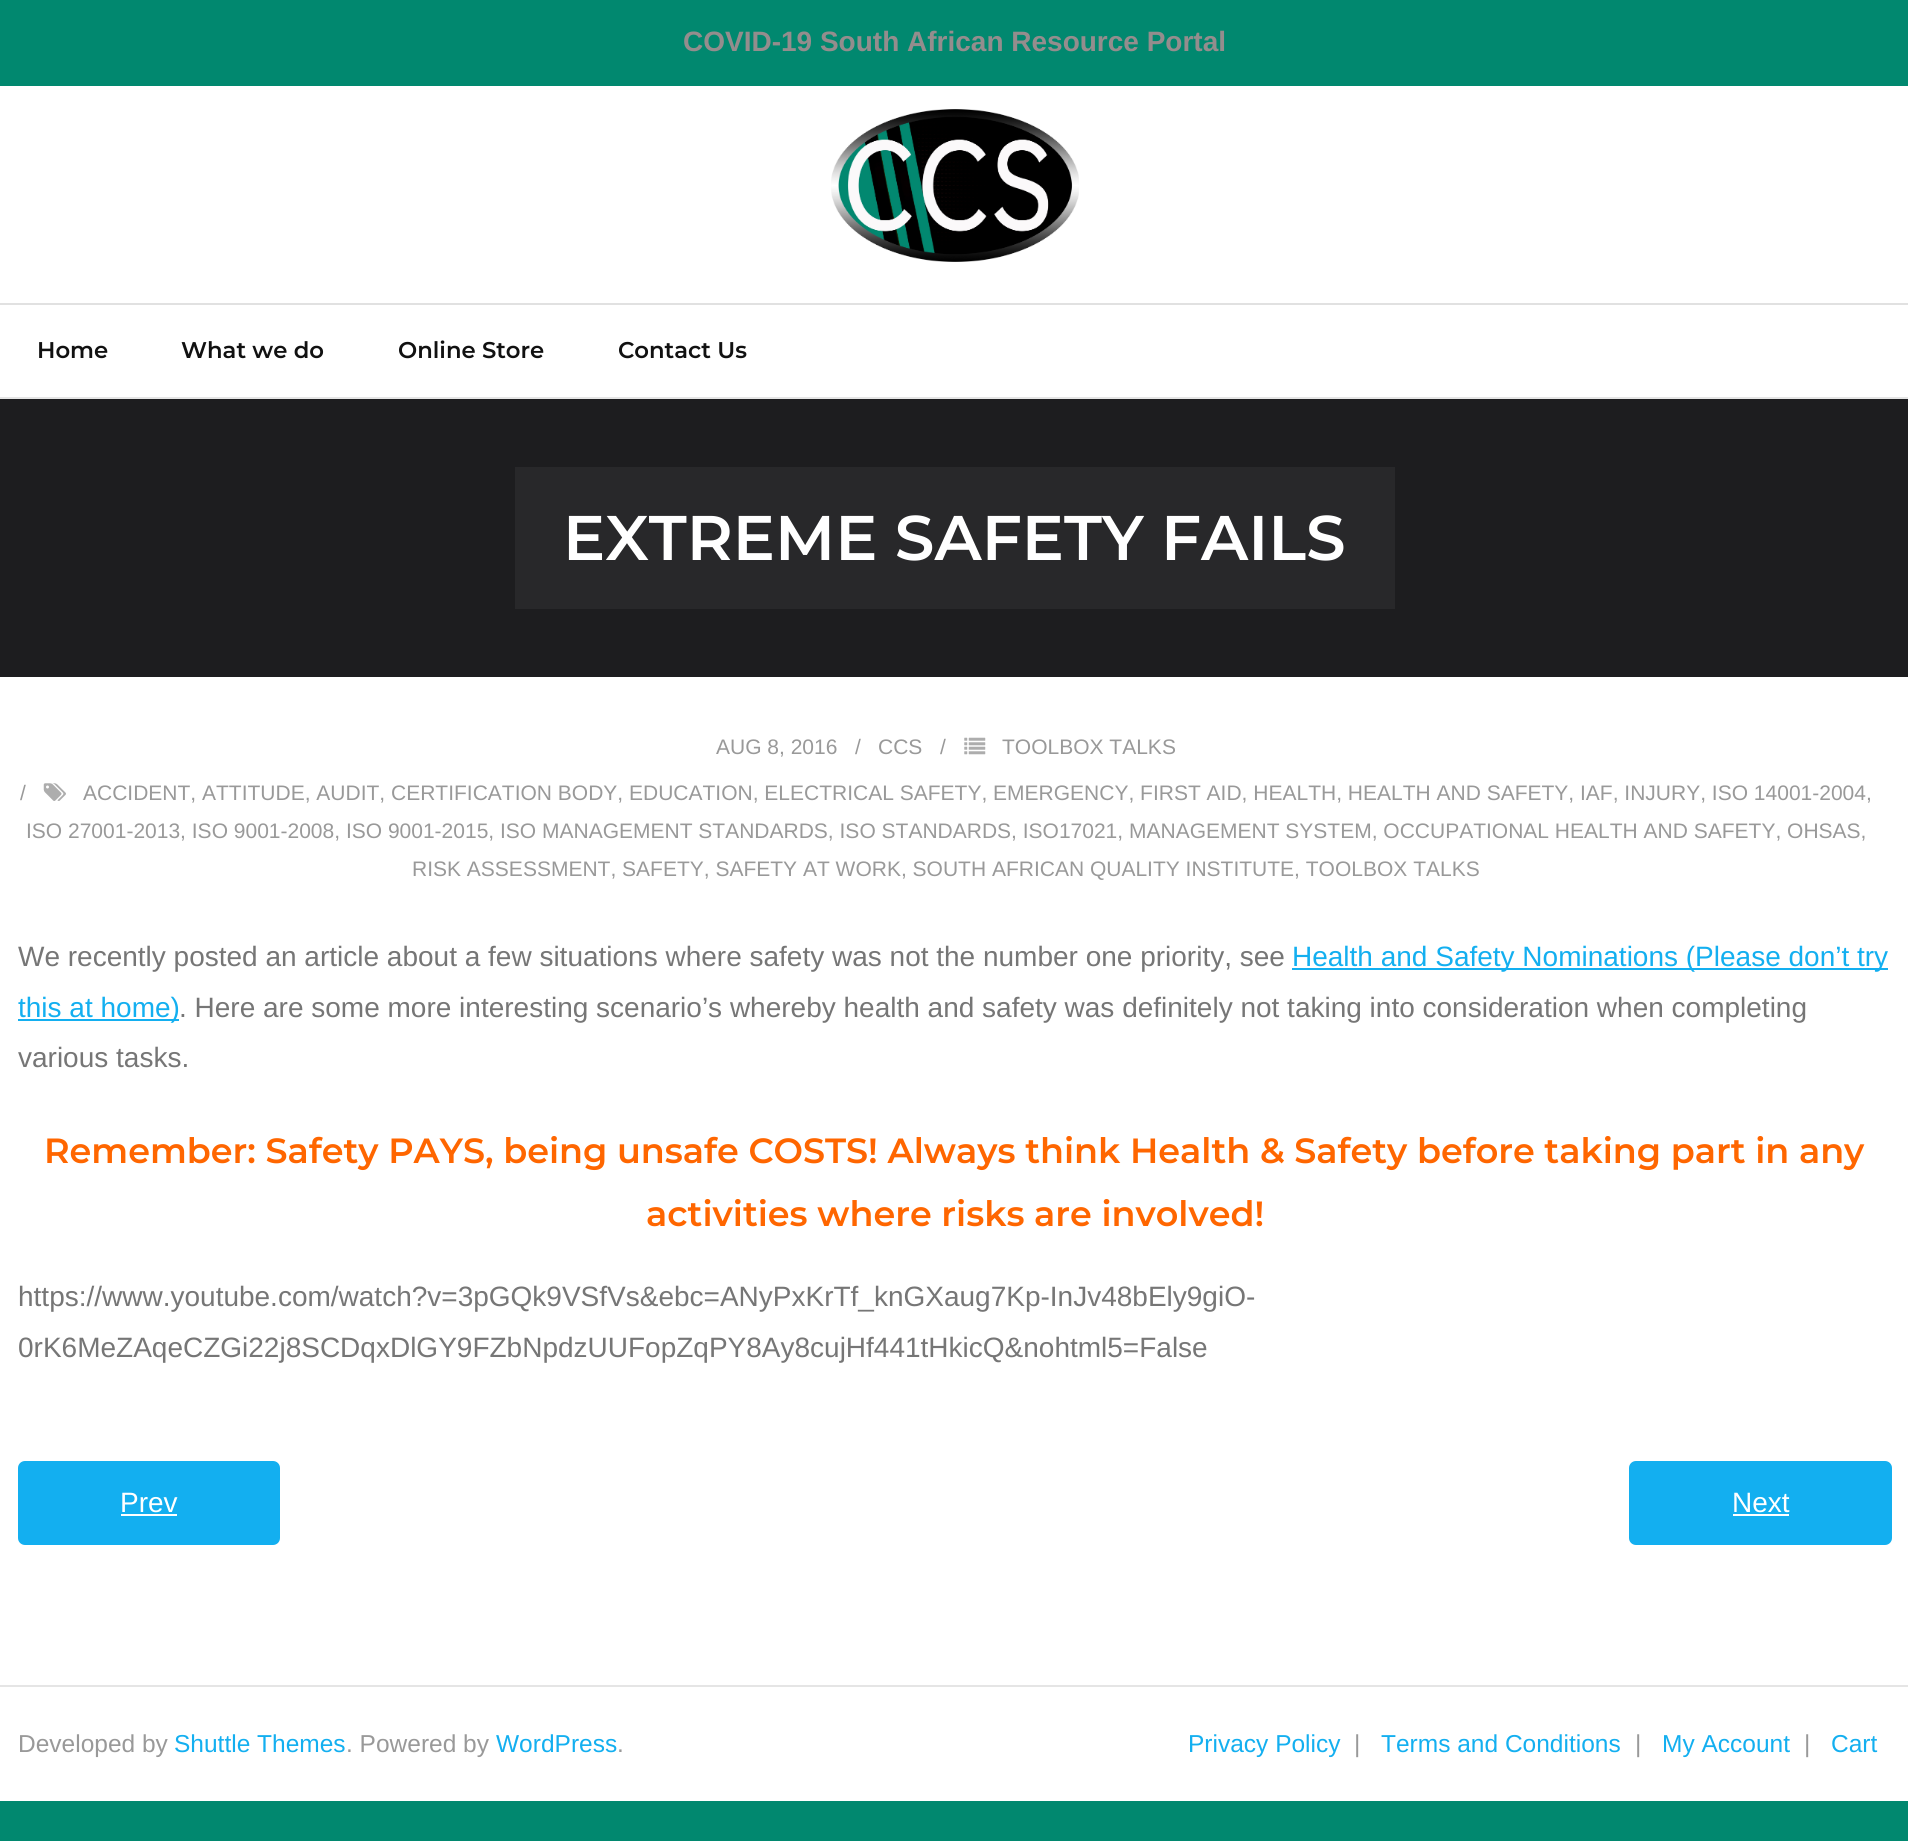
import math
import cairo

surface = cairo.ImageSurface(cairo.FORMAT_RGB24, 1908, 1841)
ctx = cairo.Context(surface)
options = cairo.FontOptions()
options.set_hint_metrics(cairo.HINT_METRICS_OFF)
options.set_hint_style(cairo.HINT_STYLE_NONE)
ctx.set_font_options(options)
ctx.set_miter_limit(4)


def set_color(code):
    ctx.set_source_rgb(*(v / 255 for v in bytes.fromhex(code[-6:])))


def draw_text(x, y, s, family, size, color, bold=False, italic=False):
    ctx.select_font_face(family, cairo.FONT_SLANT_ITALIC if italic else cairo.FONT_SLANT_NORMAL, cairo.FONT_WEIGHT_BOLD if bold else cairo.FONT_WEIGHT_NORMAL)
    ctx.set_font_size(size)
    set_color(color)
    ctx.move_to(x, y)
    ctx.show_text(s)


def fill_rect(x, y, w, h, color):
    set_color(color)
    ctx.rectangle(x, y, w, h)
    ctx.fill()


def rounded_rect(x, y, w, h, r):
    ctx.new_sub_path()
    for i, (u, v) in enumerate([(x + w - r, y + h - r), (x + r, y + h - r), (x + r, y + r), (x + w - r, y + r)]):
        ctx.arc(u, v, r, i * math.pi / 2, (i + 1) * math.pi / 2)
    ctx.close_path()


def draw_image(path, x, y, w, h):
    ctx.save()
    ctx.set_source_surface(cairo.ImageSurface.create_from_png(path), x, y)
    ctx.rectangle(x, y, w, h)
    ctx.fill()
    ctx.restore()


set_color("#01886f")
ctx.paint()
draw_text(683, 51, "COVID-19 South African Resource Portal", "Liberation Sans", 28, "#948d8d", bold=True)
fill_rect(0, 86, 1908, 1715, "#ffffff")
fill_rect(0, 397, 1908, 2, "#e5e5e5")
draw_image("assets/img1.png", 831, 109, 248, 153)
fill_rect(0, 303, 1908, 2, "#e1e1e1")
draw_text(37, 358, "Home", "Montserrat SemiBold", 22.75, "#111111")
draw_text(181, 358, "What we do", "Montserrat SemiBold", 22.75, "#111111")
draw_text(398, 358, "Online Store", "Montserrat SemiBold", 22.75, "#111111")
draw_text(618, 358, "Contact Us", "Montserrat SemiBold", 22.75, "#111111")
fill_rect(0, 399, 1908, 278, "#1d1d1f")
fill_rect(515, 467, 880, 142, "#28282a")
draw_text(563, 560, "EXTREME SAFETY FAILS", "Montserrat SemiBold", 63, "#ffffff")
draw_text(716, 754, "AUG 8, 2016", "Liberation Sans", 21, "#999999")
draw_text(855, 754, "/", "Liberation Sans", 21, "#999999")
draw_text(878, 754, "CCS", "Liberation Sans", 21, "#999999")
draw_text(940, 754, "/", "Liberation Sans", 21, "#999999")
draw_image("assets/img2.png", 964, 737, 22, 18)
draw_text(1002, 754, "TOOLBOX TALKS", "Liberation Sans", 21, "#999999")
draw_text(20, 800, "/", "Liberation Sans", 21, "#999999")
draw_image("assets/img3.png", 43, 783, 23, 18)
draw_text(83, 800, "ACCIDENT, ATTITUDE, AUDIT, CERTIFICATION BODY, EDUCATION, ELECTRICAL SAFETY, EMERGENCY, FIRST AID, HEALTH, HEALTH AND SAFETY, IAF, INJURY, ISO 14001-2004,", "Liberation Sans", 21, "#999999")
draw_text(26, 838, "ISO 27001-2013, ISO 9001-2008, ISO 9001-2015, ISO MANAGEMENT STANDARDS, ISO STANDARDS, ISO17021, MANAGEMENT SYSTEM, OCCUPATIONAL HEALTH AND SAFETY, OHSAS,", "Liberation Sans", 21, "#999999")
draw_text(412, 876, "RISK ASSESSMENT, SAFETY, SAFETY AT WORK, SOUTH AFRICAN QUALITY INSTITUTE, TOOLBOX TALKS", "Liberation Sans", 21, "#999999")
draw_text(18, 966, "We recently posted an article about a few situations where safety was not the number one priority, see", "Liberation Sans", 28, "#767676")
fill_rect(1292, 968, 596, 2, "#13aff0")
draw_text(1292, 966, "Health and Safety Nominations (Please don’t try", "Liberation Sans", 28, "#13aff0")
fill_rect(18, 1019, 161, 2, "#13aff0")
draw_text(18, 1017, "this at home)", "Liberation Sans", 28, "#13aff0")
draw_text(179, 1017, ". Here are some more interesting scenario’s whereby health and safety was definitely not taking into consideration when completing", "Liberation Sans", 28, "#767676")
draw_text(18, 1067, "various tasks.", "Liberation Sans", 28, "#767676")
draw_text(44, 1163, "Remember: Safety PAYS, being unsafe COSTS! Always think Health & Safety before taking part in any", "Montserrat SemiBold", 35, "#ff6600")
draw_text(646, 1226, "activities where risks are involved!", "Montserrat SemiBold", 35, "#ff6600")
draw_text(18, 1306, "https://www.youtube.com/watch?v=3pGQk9VSfVs&ebc=ANyPxKrTf_knGXaug7Kp-InJv48bEly9giO-", "Liberation Sans", 28, "#767676")
draw_text(18, 1357, "0rK6MeZAqeCZGi22j8SCDqxDlGY9FZbNpdzUUFopZqPY8Ay8cujHf441tHkicQ&nohtml5=False", "Liberation Sans", 28, "#767676")
set_color("#13aff0")
rounded_rect(18, 1461, 262, 84, 7)
ctx.fill()
draw_text(120, 1512, "Prev", "Liberation Sans", 28, "#ffffff")
fill_rect(121, 1514, 56, 2, "#ffffff")
set_color("#13aff0")
rounded_rect(1629, 1461, 263, 84, 7)
ctx.fill()
draw_text(1732, 1512, "Next", "Liberation Sans", 28, "#ffffff")
fill_rect(1733, 1514, 56, 2, "#ffffff")
fill_rect(0, 1685, 1908, 2, "#e5e5e5")
draw_text(18, 1752, "Developed by", "Liberation Sans", 24.5, "#999999")
draw_text(174, 1752, "Shuttle Themes", "Liberation Sans", 24.5, "#13aff0")
draw_text(346, 1752, ". Powered by", "Liberation Sans", 24.5, "#999999")
draw_text(496, 1752, "WordPress", "Liberation Sans", 24.5, "#13aff0")
draw_text(617, 1752, ".", "Liberation Sans", 24.5, "#999999")
draw_text(1188, 1752, "Privacy Policy", "Liberation Sans", 24.5, "#13aff0")
draw_text(1354, 1752, "|", "Liberation Sans", 24.5, "#999999")
draw_text(1381, 1752, "Terms and Conditions", "Liberation Sans", 24.5, "#13aff0")
draw_text(1635, 1752, "|", "Liberation Sans", 24.5, "#999999")
draw_text(1662, 1752, "My Account", "Liberation Sans", 24.5, "#13aff0")
draw_text(1804, 1752, "|", "Liberation Sans", 24.5, "#999999")
draw_text(1831, 1752, "Cart", "Liberation Sans", 24.5, "#13aff0")
surface.write_to_png("output.png")
